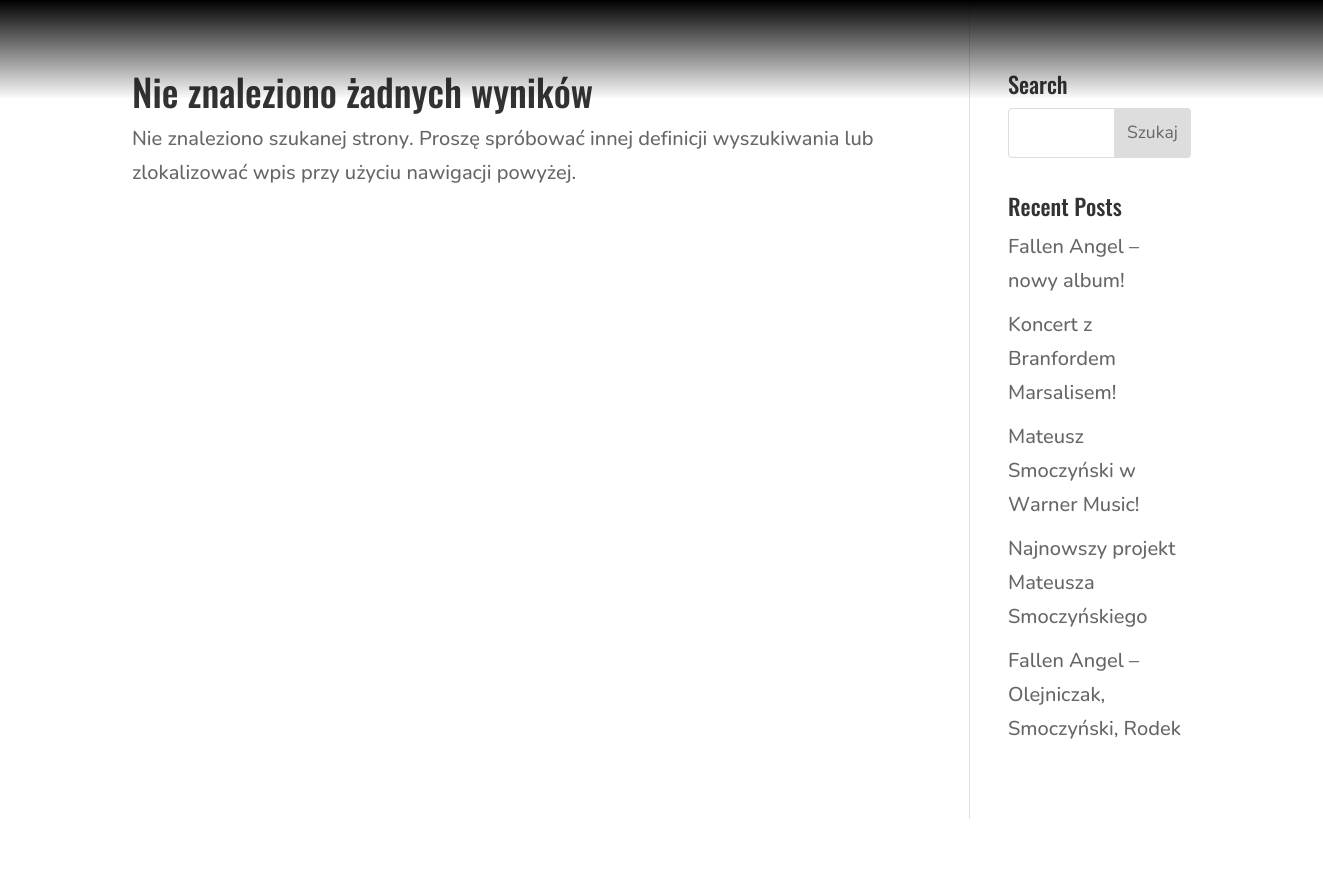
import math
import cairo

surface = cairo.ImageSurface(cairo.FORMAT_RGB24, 1323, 895)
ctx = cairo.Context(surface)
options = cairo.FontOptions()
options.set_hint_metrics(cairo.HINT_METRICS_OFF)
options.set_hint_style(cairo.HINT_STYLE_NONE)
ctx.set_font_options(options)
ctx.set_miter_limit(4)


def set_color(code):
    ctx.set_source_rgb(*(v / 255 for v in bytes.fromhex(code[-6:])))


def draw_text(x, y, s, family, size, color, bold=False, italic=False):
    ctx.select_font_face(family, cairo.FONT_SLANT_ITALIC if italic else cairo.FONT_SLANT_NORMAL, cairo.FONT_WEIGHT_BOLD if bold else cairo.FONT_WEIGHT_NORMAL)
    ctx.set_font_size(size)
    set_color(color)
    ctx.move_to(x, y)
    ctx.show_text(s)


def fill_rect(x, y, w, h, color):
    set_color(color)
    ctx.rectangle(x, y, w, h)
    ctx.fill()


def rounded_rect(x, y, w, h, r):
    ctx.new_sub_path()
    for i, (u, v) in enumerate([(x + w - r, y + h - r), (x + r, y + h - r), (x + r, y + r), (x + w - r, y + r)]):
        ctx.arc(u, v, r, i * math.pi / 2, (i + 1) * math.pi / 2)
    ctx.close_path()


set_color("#ffffff")
ctx.paint()
fill_rect(969, 0, 1, 819, "#e2e2e2")
draw_text(132, 108, "Nie znaleziono żadnych wyników", "Oswald Medium", 37.5, "#333333")
draw_text(1008, 94, "Search", "Oswald Medium", 22.5, "#333333")
gradient = cairo.LinearGradient(662, 0, 662, 100)
gradient.add_color_stop_rgba(0, 0, 0, 0, 1)
gradient.add_color_stop_rgba(1, 0, 0, 0, 0)
ctx.set_source(gradient)
ctx.rectangle(0, 0, 1323, 98)
ctx.fill()
draw_text(132, 145, "Nie znaleziono szukanej strony. Proszę spróbować innej definicji wyszukiwania lub", "Nunito Medium", 20, "#666666")
draw_text(132, 179, "zlokalizować wpis przy użyciu nawigacji powyżej.", "Nunito Medium", 20, "#666666")
rounded_rect(1008.5, 108.5, 182, 49, 3.5)
set_color("#dddddd")
ctx.set_line_width(1)
ctx.stroke()
ctx.new_path()
ctx.move_to(1114.5, 108.5)
ctx.line_to(1187, 108.5)
ctx.curve_to(1189, 108.5, 1190.5, 110, 1190.5, 112)
ctx.line_to(1190.5, 154)
ctx.curve_to(1190.5, 156, 1189, 157.5, 1187, 157.5)
ctx.line_to(1114.5, 157.5)
ctx.close_path()
ctx.fill_preserve()
ctx.stroke()
draw_text(1127, 138, "Szukaj", "Nunito", 17.5, "#666666")
draw_text(1008, 216, "Recent Posts", "Oswald Medium", 22.5, "#333333")
draw_text(1008, 253, "Fallen Angel –", "Nunito Medium", 20, "#666666")
draw_text(1008, 287, "nowy album!", "Nunito Medium", 20, "#666666")
draw_text(1008, 331, "Koncert z", "Nunito Medium", 20, "#666666")
draw_text(1008, 365, "Branfordem", "Nunito Medium", 20, "#666666")
draw_text(1008, 399, "Marsalisem!", "Nunito Medium", 20, "#666666")
draw_text(1008, 443, "Mateusz", "Nunito Medium", 20, "#666666")
draw_text(1008, 477, "Smoczyński w", "Nunito Medium", 20, "#666666")
draw_text(1008, 511, "Warner Music!", "Nunito Medium", 20, "#666666")
draw_text(1008, 555, "Najnowszy projekt", "Nunito Medium", 20, "#666666")
draw_text(1008, 589, "Mateusza", "Nunito Medium", 20, "#666666")
draw_text(1008, 623, "Smoczyńskiego", "Nunito Medium", 20, "#666666")
draw_text(1008, 667, "Fallen Angel –", "Nunito Medium", 20, "#666666")
draw_text(1008, 701, "Olejniczak,", "Nunito Medium", 20, "#666666")
draw_text(1008, 735, "Smoczyński, Rodek", "Nunito Medium", 20, "#666666")
surface.write_to_png("output.png")
